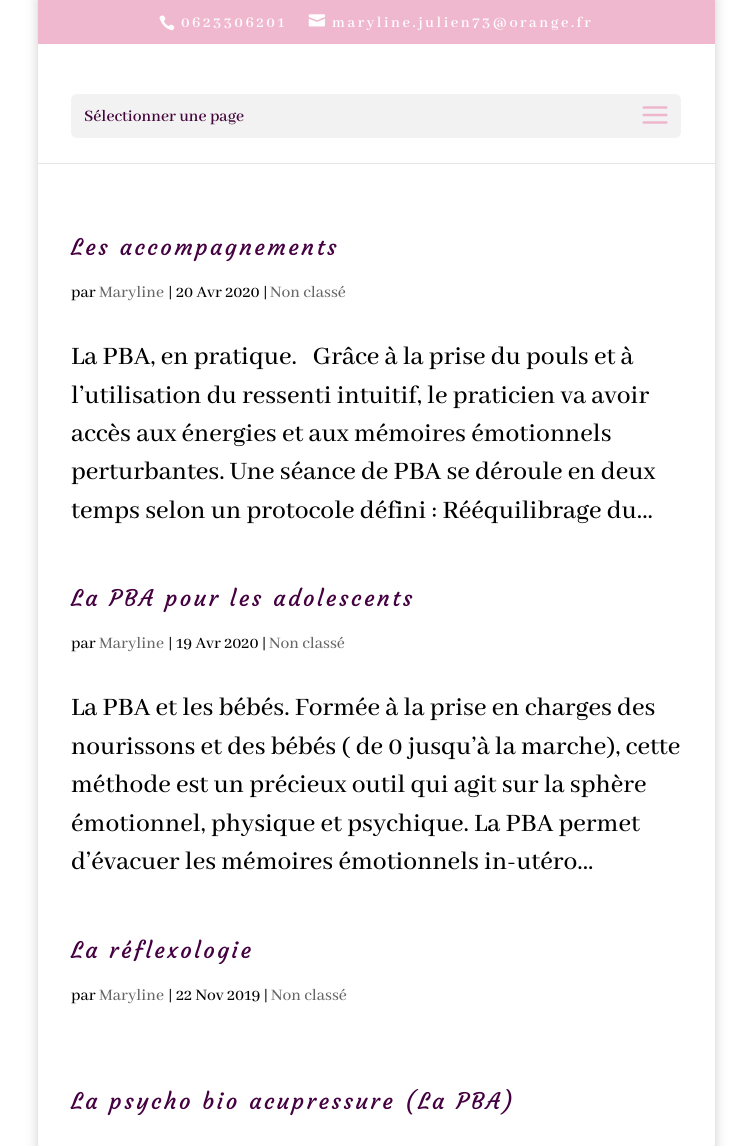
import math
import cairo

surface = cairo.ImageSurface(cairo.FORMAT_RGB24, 752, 1146)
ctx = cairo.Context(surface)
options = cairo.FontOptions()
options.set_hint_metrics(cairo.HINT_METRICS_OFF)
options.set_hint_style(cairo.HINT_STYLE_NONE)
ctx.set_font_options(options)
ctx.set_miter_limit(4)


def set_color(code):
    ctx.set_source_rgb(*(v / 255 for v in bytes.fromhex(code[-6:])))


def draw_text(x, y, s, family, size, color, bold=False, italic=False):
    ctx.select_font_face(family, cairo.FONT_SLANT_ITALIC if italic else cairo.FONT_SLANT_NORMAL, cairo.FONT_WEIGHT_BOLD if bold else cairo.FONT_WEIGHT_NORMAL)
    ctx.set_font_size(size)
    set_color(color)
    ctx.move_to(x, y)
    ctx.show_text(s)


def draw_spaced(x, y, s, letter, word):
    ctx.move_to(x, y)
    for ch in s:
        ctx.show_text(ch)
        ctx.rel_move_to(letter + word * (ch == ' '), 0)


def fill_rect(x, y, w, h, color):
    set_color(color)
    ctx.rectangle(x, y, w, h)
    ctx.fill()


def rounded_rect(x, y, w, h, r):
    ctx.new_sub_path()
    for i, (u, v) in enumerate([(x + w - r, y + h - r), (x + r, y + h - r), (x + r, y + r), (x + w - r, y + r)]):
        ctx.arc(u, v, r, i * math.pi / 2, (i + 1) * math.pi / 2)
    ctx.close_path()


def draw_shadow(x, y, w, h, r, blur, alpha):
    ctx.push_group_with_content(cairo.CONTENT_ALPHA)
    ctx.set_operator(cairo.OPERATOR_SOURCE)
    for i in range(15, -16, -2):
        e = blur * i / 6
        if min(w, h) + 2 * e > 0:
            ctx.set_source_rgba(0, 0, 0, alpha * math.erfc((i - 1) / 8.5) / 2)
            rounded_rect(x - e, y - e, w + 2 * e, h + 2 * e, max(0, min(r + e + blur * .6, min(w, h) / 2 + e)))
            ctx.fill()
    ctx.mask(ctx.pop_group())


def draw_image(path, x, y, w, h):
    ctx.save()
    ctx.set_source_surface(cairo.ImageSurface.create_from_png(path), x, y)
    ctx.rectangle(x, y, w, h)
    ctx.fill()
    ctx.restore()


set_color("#ffffff")
ctx.paint()
ctx.save()
ctx.set_fill_rule(cairo.FILL_RULE_EVEN_ODD)
ctx.new_path()
ctx.move_to(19, 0)
ctx.line_to(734, 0)
ctx.line_to(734, 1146)
ctx.line_to(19, 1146)
ctx.close_path()
ctx.move_to(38, 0)
ctx.line_to(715, 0)
ctx.line_to(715, 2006)
ctx.line_to(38, 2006)
ctx.close_path()
ctx.clip()
set_color("#000000")
draw_shadow(38, 0, 677, 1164, 0, 6, 0.2)
ctx.restore()
fill_rect(38, 0, 677, 44, "#f0b8ce")
draw_image("assets/img1.png", 159, 15, 16, 16)
ctx.select_font_face("Abhaya Libre SemiBold SemiBold")
ctx.set_font_size(16.25)
set_color("#ffffff")
draw_spaced(181, 27, "0623306201", 2.5, 0)
draw_image("assets/img2.png", 308, 14, 17, 13)
draw_spaced(332, 27, "maryline.julien73@orange.fr", 2.5, 0)
fill_rect(38, 163, 677, 1, "#e6e6e6")
set_color("#f2f2f2")
rounded_rect(71, 94, 610, 44, 6)
ctx.fill()
draw_text(84, 121, "Sélectionner une page", "Abhaya Libre SemiBold SemiBold", 17.5, "#44073c")
draw_image("assets/img3.png", 642, 106, 26, 18)
ctx.select_font_face("Courgette")
ctx.set_font_size(22.5)
set_color("#440040")
draw_spaced(71, 255, "Les accompagnements", 2.5, 0)
draw_text(71, 297, "par", "Abhaya Libre Medium Medium", 17.5, "#000000")
draw_text(99, 297, "Maryline", "Abhaya Libre Medium Medium", 17.5, "#666666")
draw_text(168, 297, "| 20 Avr 2020 |", "Abhaya Libre Medium Medium", 17.5, "#000000")
draw_text(270, 297, "Non classé", "Abhaya Libre Medium Medium", 17.5, "#666666")
draw_text(71, 364, "La PBA, en pratique.   Grâce à la prise du pouls et à", "Abhaya Libre Medium Medium", 27.5, "#000000")
draw_text(71, 403, "l’utilisation du ressenti intuitif, le praticien va avoir", "Abhaya Libre Medium Medium", 27.5, "#000000")
draw_text(71, 441, "accès aux énergies et aux mémoires émotionnels", "Abhaya Libre Medium Medium", 27.5, "#000000")
draw_text(71, 479, "perturbantes. Une séance de PBA se déroule en deux", "Abhaya Libre Medium Medium", 27.5, "#000000")
draw_text(71, 518, "temps selon un protocole défini : Rééquilibrage du...", "Abhaya Libre Medium Medium", 27.5, "#000000")
ctx.select_font_face("Courgette")
ctx.set_font_size(22.5)
set_color("#440040")
draw_spaced(71, 606, "La PBA pour les adolescents", 2.5, 0)
draw_text(71, 648, "par", "Abhaya Libre Medium Medium", 17.5, "#000000")
draw_text(99, 648, "Maryline", "Abhaya Libre Medium Medium", 17.5, "#666666")
draw_text(168, 648, "| 19 Avr 2020 |", "Abhaya Libre Medium Medium", 17.5, "#000000")
draw_text(269, 648, "Non classé", "Abhaya Libre Medium Medium", 17.5, "#666666")
draw_text(71, 715, "La PBA et les bébés. Formée à la prise en charges des", "Abhaya Libre Medium Medium", 27.5, "#000000")
draw_text(71, 754, "nourissons et des bébés ( de 0 jusqu’à la marche), cette", "Abhaya Libre Medium Medium", 27.5, "#000000")
draw_text(71, 792, "méthode est un précieux outil qui agit sur la sphère", "Abhaya Libre Medium Medium", 27.5, "#000000")
draw_text(71, 831, "émotionnel, physique et psychique. La PBA permet", "Abhaya Libre Medium Medium", 27.5, "#000000")
draw_text(71, 869, "d’évacuer les mémoires émotionnels in-utéro...", "Abhaya Libre Medium Medium", 27.5, "#000000")
ctx.select_font_face("Courgette")
ctx.set_font_size(22.5)
set_color("#440040")
draw_spaced(71, 958, "La réflexologie", 2.5, 0)
draw_text(71, 1000, "par", "Abhaya Libre Medium Medium", 17.5, "#000000")
draw_text(99, 1000, "Maryline", "Abhaya Libre Medium Medium", 17.5, "#666666")
draw_text(168, 1000, "| 22 Nov 2019 |", "Abhaya Libre Medium Medium", 17.5, "#000000")
draw_text(271, 1000, "Non classé", "Abhaya Libre Medium Medium", 17.5, "#666666")
ctx.select_font_face("Courgette")
ctx.set_font_size(22.5)
set_color("#440040")
draw_spaced(71, 1109, "La psycho bio acupressure (La PBA)", 2.5, 0)
surface.write_to_png("output.png")
